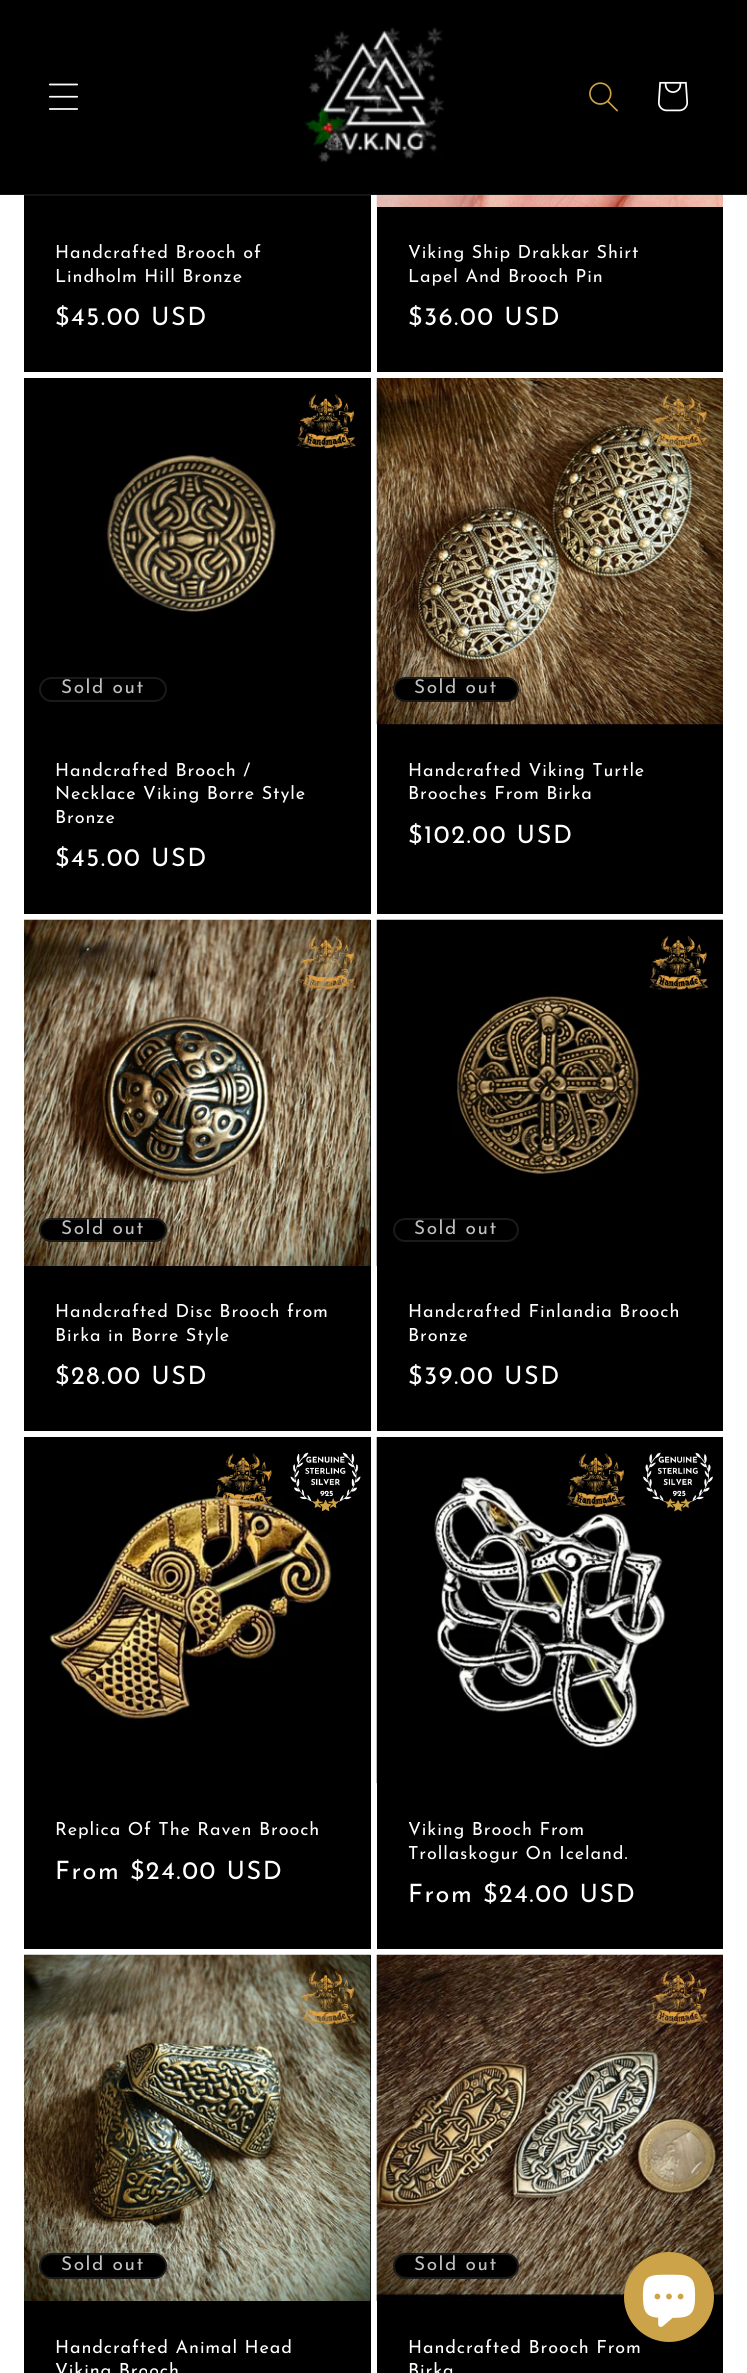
import math
import cairo

surface = cairo.ImageSurface(cairo.FORMAT_RGB24, 747, 2373)
ctx = cairo.Context(surface)
options = cairo.FontOptions()
options.set_hint_metrics(cairo.HINT_METRICS_OFF)
options.set_hint_style(cairo.HINT_STYLE_NONE)
ctx.set_font_options(options)
ctx.set_miter_limit(4)


def set_color(code):
    ctx.set_source_rgb(*(v / 255 for v in bytes.fromhex(code[-6:])))


def draw_spaced(x, y, s, letter, word):
    ctx.move_to(x, y)
    for ch in s:
        ctx.show_text(ch)
        ctx.rel_move_to(letter + word * (ch == ' '), 0)


def fill_rect(x, y, w, h, color):
    set_color(color)
    ctx.rectangle(x, y, w, h)
    ctx.fill()


def rounded_rect(x, y, w, h, r):
    ctx.new_sub_path()
    for i, (u, v) in enumerate([(x + w - r, y + h - r), (x + r, y + h - r), (x + r, y + r), (x + w - r, y + r)]):
        ctx.arc(u, v, r, i * math.pi / 2, (i + 1) * math.pi / 2)
    ctx.close_path()


def draw_image(path, x, y, w, h):
    ctx.save()
    ctx.set_source_surface(cairo.ImageSurface.create_from_png(path), x, y)
    ctx.rectangle(x, y, w, h)
    ctx.fill()
    ctx.restore()


set_color("#ffffff")
ctx.paint()
fill_rect(0, 0, 747, 195, "#000000")
fill_rect(24, 195, 347, 177, "#000000")
draw_image("assets/img5.png", 376, 195, 347, 12)
ctx.set_source_rgba(1, 1, 1, 0.08)
ctx.rectangle(0, 194, 747, 2)
ctx.fill()
draw_image("assets/img1.png", 48, 83, 31, 27)
draw_image("assets/img2.png", 304, 27, 140, 136)
draw_image("assets/img3.png", 589, 82, 29, 30)
draw_image("assets/img4.png", 658, 81, 30, 31)
ctx.select_font_face("Josefin Sans Thin")
ctx.set_font_size(18)
set_color("#ffffff")
draw_spaced(55, 258, "Handcrafted Brooch of", 0.9, 0)
draw_spaced(55, 282, "Lindholm Hill Bronze", 0.9, 0)
ctx.set_font_size(25.25)
draw_spaced(55, 325, "$45.00 USD", 1.6, 0)
fill_rect(377, 207, 346, 165, "#000000")
ctx.set_font_size(18)
set_color("#ffffff")
draw_spaced(408, 258, "Viking Ship Drakkar Shirt", 0.9, 0)
draw_spaced(408, 282, "Lapel And Brooch Pin", 0.9, 0)
ctx.set_font_size(25.25)
draw_spaced(408, 325, "$36.00 USD", 1.6, 0)
fill_rect(24, 378, 347, 536, "#000000")
draw_image("assets/img6.png", 296, 394, 60, 55)
draw_image("assets/img7.png", 105, 454, 173, 159)
rounded_rect(40, 678, 126, 23, 11.5)
set_color("#1a1a1a")
ctx.stroke()
ctx.set_font_size(19)
set_color("#bfbfbf")
draw_spaced(61, 693, "Sold out", 1.6, 0)
ctx.set_font_size(18)
set_color("#ffffff")
draw_spaced(55, 776, "Handcrafted Brooch /", 0.9, 0)
draw_spaced(55, 799, "Necklace Viking Borre Style", 0.9, 0)
draw_spaced(55, 823, "Bronze", 0.9, 0)
ctx.set_font_size(25.25)
draw_spaced(55, 866, "$45.00 USD", 1.6, 0)
fill_rect(377, 724, 346, 190, "#000000")
draw_image("assets/img8.png", 376, 378, 347, 347)
draw_image("assets/img9.png", 649, 394, 60, 55)
rounded_rect(393, 677, 126, 25, 12.5)
ctx.fill()
rounded_rect(394, 678, 124, 23, 11.5)
ctx.set_source_rgba(1, 1, 1, 0.1)
ctx.stroke()
ctx.set_font_size(19)
set_color("#bfbfbf")
draw_spaced(414, 693, "Sold out", 1.6, 0)
ctx.set_font_size(18)
set_color("#ffffff")
draw_spaced(408, 776, "Handcrafted Viking Turtle", 0.9, 0)
draw_spaced(408, 799, "Brooches From Birka", 0.9, 0)
ctx.set_font_size(25.25)
draw_spaced(408, 843, "$102.00 USD", 1.6, 0)
fill_rect(24, 920, 347, 511, "#000000")
draw_image("assets/img10.png", 24, 919, 347, 347)
draw_image("assets/img11.png", 297, 936, 59, 54)
rounded_rect(39, 1218, 128, 24, 12)
ctx.fill()
rounded_rect(40, 1219, 126, 22, 11)
ctx.set_source_rgba(1, 1, 1, 0.1)
ctx.stroke()
ctx.set_font_size(19)
set_color("#bfbfbf")
draw_spaced(61, 1234, "Sold out", 1.6, 0)
ctx.set_font_size(18)
set_color("#ffffff")
draw_spaced(55, 1317, "Handcrafted Disc Brooch from", 0.9, 0)
draw_spaced(55, 1341, "Birka in Borre Style", 0.9, 0)
ctx.set_font_size(25.25)
draw_spaced(55, 1384, "$28.00 USD", 1.6, 0)
fill_rect(377, 1266, 346, 165, "#000000")
draw_image("assets/img12.png", 376, 919, 347, 347)
draw_image("assets/img13.png", 648, 936, 61, 54)
rounded_rect(394, 1219, 124, 22, 11)
set_color("#1a1a1a")
ctx.stroke()
ctx.set_font_size(19)
set_color("#bfbfbf")
draw_spaced(414, 1234, "Sold out", 1.6, 0)
ctx.set_font_size(18)
set_color("#ffffff")
draw_spaced(408, 1317, "Handcrafted Finlandia Brooch", 0.9, 0)
draw_spaced(408, 1341, "Bronze", 0.9, 0)
ctx.set_font_size(25.25)
draw_spaced(408, 1384, "$39.00 USD", 1.6, 0)
fill_rect(24, 1437, 347, 512, "#000000")
draw_image("assets/img16.png", 48, 1497, 284, 225)
draw_image("assets/img14.png", 214, 1453, 60, 55)
draw_image("assets/img15.png", 290, 1452, 71, 60)
ctx.set_font_size(18)
set_color("#ffffff")
draw_spaced(55, 1835, "Replica Of The Raven Brooch", 0.9, 0)
ctx.set_font_size(25.25)
draw_spaced(55, 1879, "From $24.00 USD", 1.6, 0)
fill_rect(377, 1437, 346, 512, "#000000")
draw_image("assets/img17.png", 376, 1437, 290, 347)
draw_image("assets/img6.png", 566, 1453, 60, 55)
draw_image("assets/img18.png", 643, 1452, 70, 60)
ctx.set_font_size(18)
set_color("#ffffff")
draw_spaced(408, 1835, "Viking Brooch From", 0.9, 0)
draw_spaced(408, 1859, "Trollaskogur On Iceland.", 0.9, 0)
ctx.set_font_size(25.25)
draw_spaced(408, 1902, "From $24.00 USD", 1.6, 0)
fill_rect(24, 1955, 347, 418, "#000000")
draw_image("assets/img19.png", 24, 1954, 347, 347)
draw_image("assets/img20.png", 296, 1971, 60, 54)
rounded_rect(39, 2253, 128, 26, 13)
ctx.fill()
rounded_rect(40, 2254, 126, 24, 12)
ctx.set_source_rgba(1, 1, 1, 0.1)
ctx.stroke()
ctx.set_font_size(19)
set_color("#bfbfbf")
draw_spaced(61, 2270, "Sold out", 1.6, 0)
ctx.set_font_size(18)
set_color("#ffffff")
draw_spaced(55, 2353, "Handcrafted Animal Head", 0.9, 0)
draw_spaced(55, 2376, "Viking Brooch", 0.9, 0)
fill_rect(377, 2301, 346, 72, "#000000")
draw_image("assets/img21.png", 376, 1954, 347, 347)
draw_image("assets/img22.png", 649, 1971, 60, 54)
rounded_rect(393, 2253, 126, 26, 13)
ctx.fill()
rounded_rect(394, 2254, 124, 24, 12)
ctx.set_source_rgba(1, 1, 1, 0.1)
ctx.stroke()
ctx.set_font_size(19)
set_color("#bfbfbf")
draw_spaced(414, 2270, "Sold out", 1.6, 0)
ctx.set_font_size(18)
set_color("#ffffff")
draw_spaced(408, 2353, "Handcrafted Brooch From", 0.9, 0)
draw_spaced(408, 2376, "Birka", 0.9, 0)
set_color("#cda349")
ctx.new_path()
ctx.arc(669, 2297, 45, 0, 2 * math.pi)
ctx.fill()
draw_image("assets/img23.png", 642, 2274, 54, 53)
surface.write_to_png("output.png")
